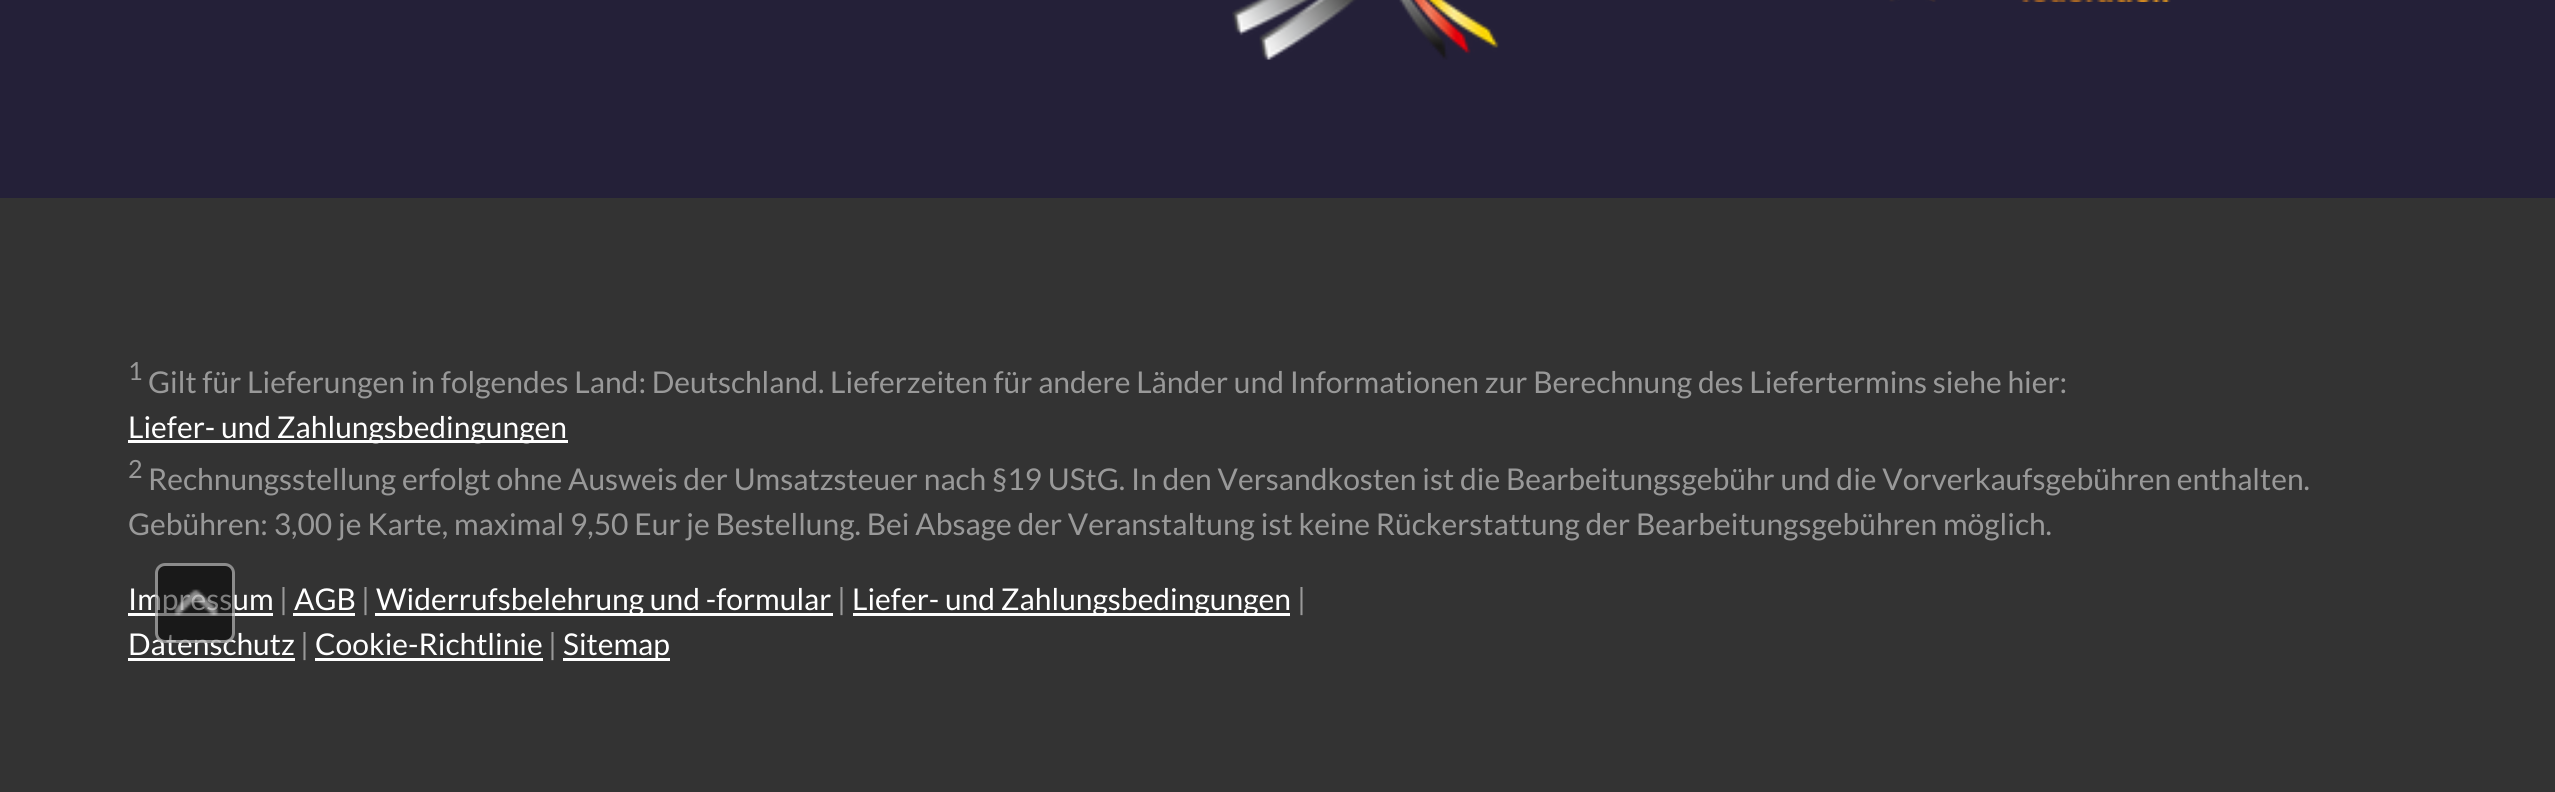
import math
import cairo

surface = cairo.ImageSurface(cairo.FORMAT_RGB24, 2555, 792)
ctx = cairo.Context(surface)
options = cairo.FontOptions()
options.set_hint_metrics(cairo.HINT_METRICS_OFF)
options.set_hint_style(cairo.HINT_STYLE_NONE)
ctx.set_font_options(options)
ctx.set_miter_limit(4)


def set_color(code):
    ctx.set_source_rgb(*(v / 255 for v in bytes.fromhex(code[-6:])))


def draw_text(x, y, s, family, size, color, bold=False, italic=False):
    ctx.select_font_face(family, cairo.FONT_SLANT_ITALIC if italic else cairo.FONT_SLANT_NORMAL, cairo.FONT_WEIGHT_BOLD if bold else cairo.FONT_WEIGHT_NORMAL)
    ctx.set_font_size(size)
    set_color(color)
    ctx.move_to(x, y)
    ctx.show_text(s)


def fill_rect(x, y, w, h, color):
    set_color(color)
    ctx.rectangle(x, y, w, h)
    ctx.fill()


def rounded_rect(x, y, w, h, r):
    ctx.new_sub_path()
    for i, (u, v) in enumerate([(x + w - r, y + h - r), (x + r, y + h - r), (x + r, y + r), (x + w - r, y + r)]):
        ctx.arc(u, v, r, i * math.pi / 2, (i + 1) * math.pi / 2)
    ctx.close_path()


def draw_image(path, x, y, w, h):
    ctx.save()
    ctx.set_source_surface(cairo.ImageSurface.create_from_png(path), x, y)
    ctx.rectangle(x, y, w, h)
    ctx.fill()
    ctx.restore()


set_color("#333333")
ctx.paint()
fill_rect(0, 0, 2555, 198, "#242038")
draw_image("assets/img1.png", 1232, 0, 267, 60)
draw_image("assets/img2.png", 1889, 0, 282, 2)
draw_text(128, 380, "1", "Lato", 25, "#999999")
draw_text(148, 393, "Gilt für Lieferungen in folgendes Land: Deutschland. Lieferzeiten für andere Länder und Informationen zur Berechnung des Liefertermins siehe hier:", "Lato", 30, "#999999")
fill_rect(128, 440, 440, 3, "#ffffff")
draw_text(128, 438, "Liefer- und Zahlungsbedingungen", "Lato", 30, "#ffffff")
draw_text(128, 478, "2", "Lato", 25, "#999999")
draw_text(148, 490, "Rechnungsstellung erfolgt ohne Ausweis der Umsatzsteuer nach §19 UStG. In den Versandkosten ist die Bearbeitungsgebühr und die Vorverkaufsgebühren enthalten.", "Lato", 30, "#999999")
draw_text(128, 535, "Gebühren: 3,00 je Karte, maximal 9,50 Eur je Bestellung. Bei Absage der Veranstaltung ist keine Rückerstattung der Bearbeitungsgebühren möglich.", "Lato", 30, "#999999")
fill_rect(128, 613, 145, 3, "#ffffff")
draw_text(128, 610, "Impressum", "Lato", 30, "#ffffff")
draw_text(279, 610, "|", "Lato", 30, "#999999")
draw_text(294, 610, "AGB", "Lato", 30, "#ffffff")
fill_rect(293, 613, 62, 3, "#ffffff")
draw_text(361, 610, "|", "Lato", 30, "#999999")
fill_rect(375, 613, 458, 3, "#ffffff")
draw_text(376, 610, "Widerrufsbelehrung und -formular", "Lato", 30, "#ffffff")
draw_text(837, 610, "|", "Lato", 30, "#999999")
fill_rect(853, 613, 437, 3, "#ffffff")
draw_text(852, 610, "Liefer- und Zahlungsbedingungen", "Lato", 30, "#ffffff")
draw_text(1297, 610, "|", "Lato", 30, "#999999")
draw_text(128, 655, "Datenschutz", "Lato", 30, "#ffffff")
fill_rect(128, 658, 167, 3, "#ffffff")
draw_text(300, 655, "|", "Lato", 30, "#999999")
draw_text(315, 655, "Cookie-Richtlinie", "Lato", 30, "#ffffff")
fill_rect(315, 658, 228, 3, "#ffffff")
draw_text(548, 655, "|", "Lato", 30, "#999999")
fill_rect(563, 658, 107, 3, "#ffffff")
draw_text(563, 655, "Sitemap", "Lato", 30, "#ffffff")
ctx.set_source_rgba(0, 0, 0, 0.5)
rounded_rect(155, 563, 80, 80, 10)
ctx.fill()
rounded_rect(156.5, 564.5, 77, 77, 8.5)
ctx.set_source_rgba(1, 1, 1, 0.5)
ctx.set_line_width(3)
ctx.stroke()
draw_image("assets/img3.png", 174, 589, 45, 27)
surface.write_to_png("output.png")
